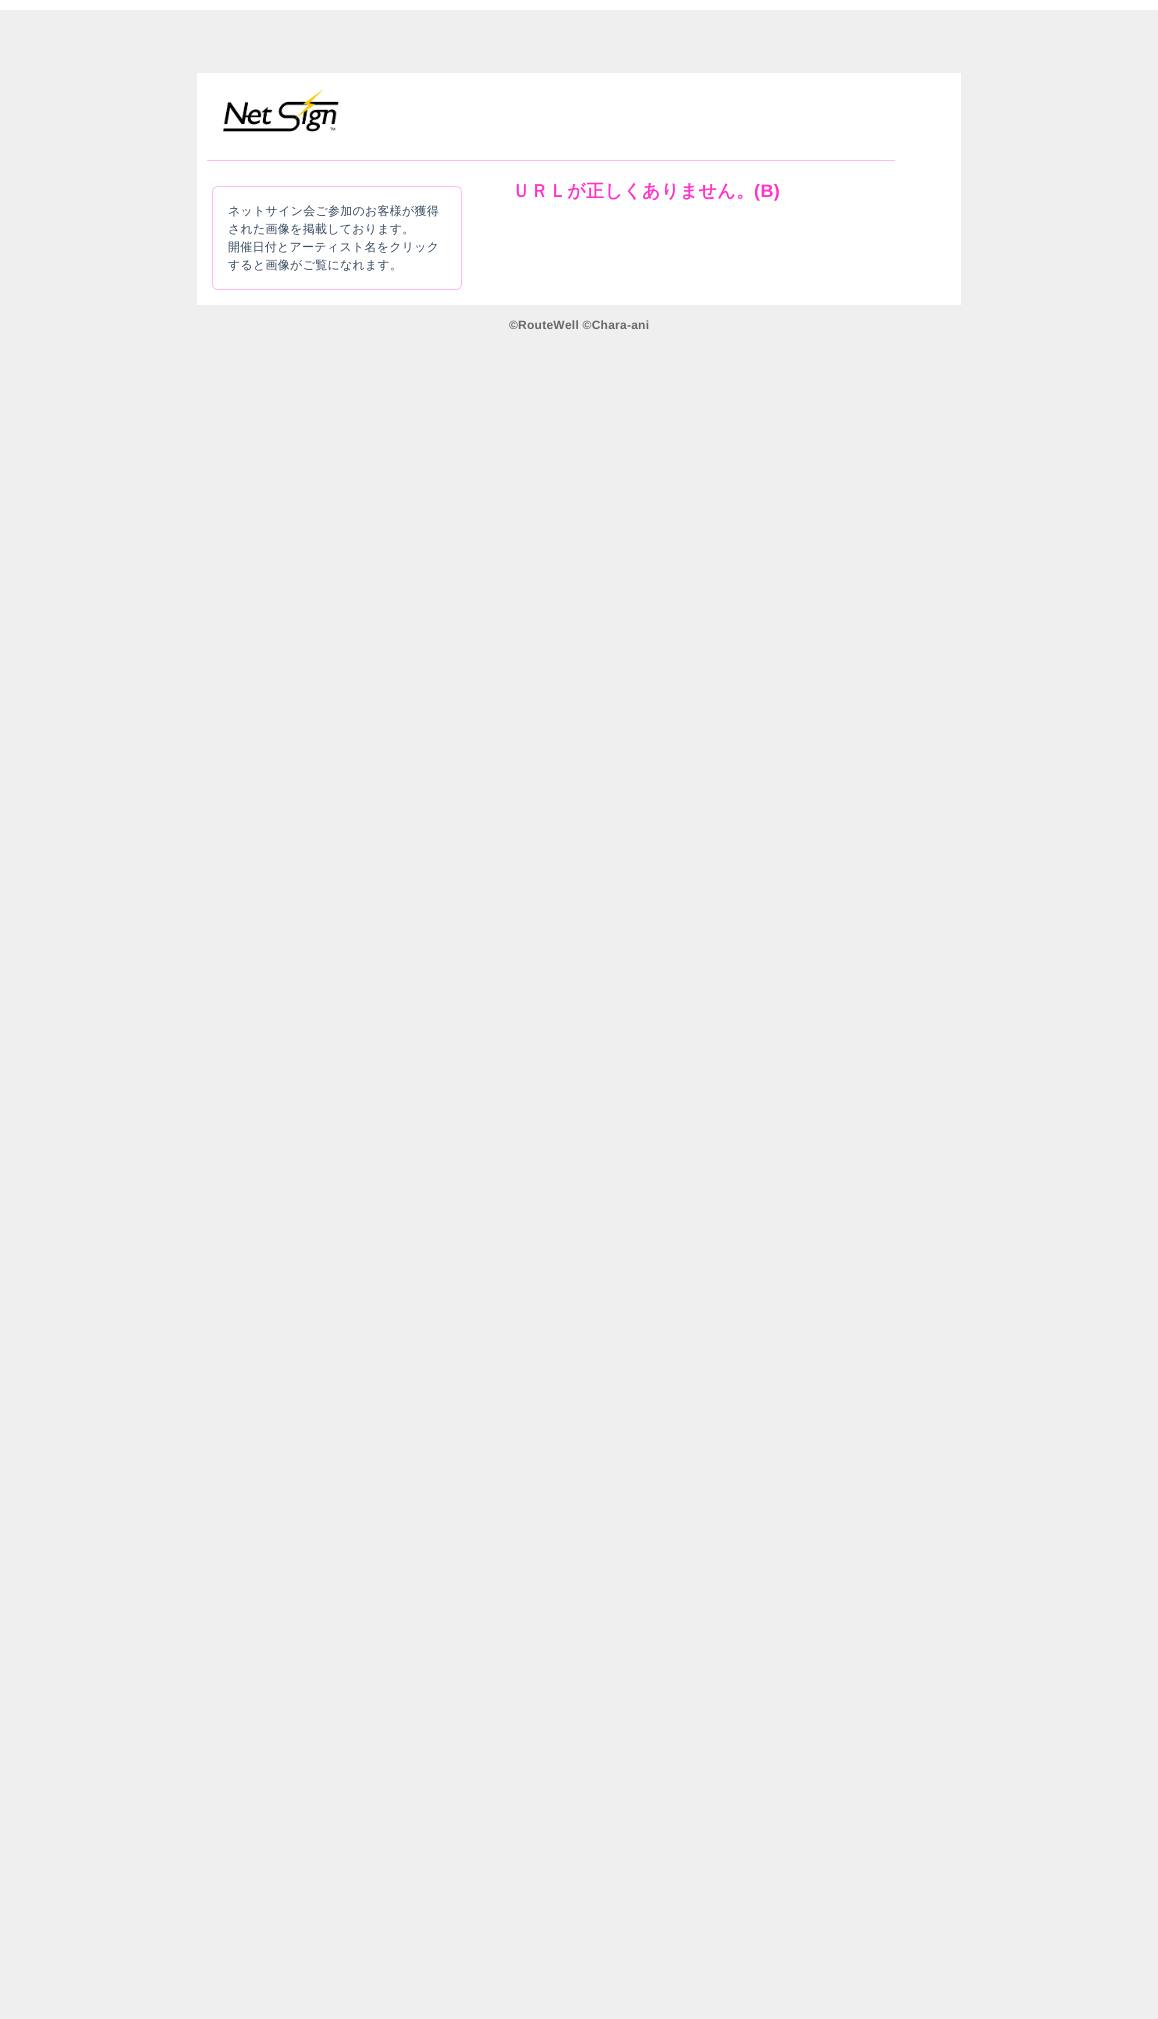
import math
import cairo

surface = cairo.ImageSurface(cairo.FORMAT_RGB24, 1158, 2019)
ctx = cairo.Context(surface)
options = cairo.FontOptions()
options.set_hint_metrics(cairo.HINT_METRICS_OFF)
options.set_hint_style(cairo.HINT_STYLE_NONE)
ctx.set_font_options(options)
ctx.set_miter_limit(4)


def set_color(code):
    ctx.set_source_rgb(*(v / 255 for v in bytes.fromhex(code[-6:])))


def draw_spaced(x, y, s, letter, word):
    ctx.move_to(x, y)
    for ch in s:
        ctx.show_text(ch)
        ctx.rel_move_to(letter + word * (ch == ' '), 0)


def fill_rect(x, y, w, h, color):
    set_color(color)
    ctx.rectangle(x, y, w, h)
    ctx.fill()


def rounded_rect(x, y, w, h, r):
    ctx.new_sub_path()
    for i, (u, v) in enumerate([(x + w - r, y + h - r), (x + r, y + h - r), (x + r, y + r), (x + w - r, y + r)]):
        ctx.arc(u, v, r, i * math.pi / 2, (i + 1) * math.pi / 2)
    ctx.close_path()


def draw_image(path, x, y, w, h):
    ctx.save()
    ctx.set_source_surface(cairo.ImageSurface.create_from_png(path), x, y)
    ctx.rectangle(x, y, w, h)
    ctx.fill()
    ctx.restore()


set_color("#efefef")
ctx.paint()
fill_rect(0, 0, 1158, 10, "#ffffff")
fill_rect(197, 73, 764, 232, "#ffffff")
draw_image("assets/img1.png", 223, 89, 116, 43)
fill_rect(207, 160, 688, 1, "#ffbbee")
ctx.select_font_face("WenQuanYi Zen Hei", cairo.FONT_SLANT_NORMAL, cairo.FONT_WEIGHT_BOLD)
ctx.set_font_size(18)
set_color("#ff33cc")
draw_spaced(512, 197, "ＵＲＬが正しくありません。", 0.4, 0)
ctx.select_font_face("Liberation Sans", cairo.FONT_SLANT_NORMAL, cairo.FONT_WEIGHT_BOLD)
draw_spaced(754, 197, "(B)", 0.4, 0)
rounded_rect(212.5, 186.5, 249, 103, 5.5)
set_color("#ffbbee")
ctx.set_line_width(1)
ctx.stroke()
ctx.select_font_face("WenQuanYi Zen Hei Medium")
ctx.set_font_size(12)
set_color("#34495e")
draw_spaced(228, 215, "ネットサイン会ご参加のお客様が獲得", 0.25, 0)
draw_spaced(228, 233, "された画像を掲載しております。", 0.25, 0)
draw_spaced(228, 251, "開催日付とアーティスト名をクリック", 0.25, 0)
draw_spaced(228, 269, "すると画像がご覧になれます。", 0.25, 0)
ctx.select_font_face("Liberation Sans", cairo.FONT_SLANT_NORMAL, cairo.FONT_WEIGHT_BOLD)
set_color("#686868")
draw_spaced(509, 329, "©RouteWell ©Chara-ani", 0.25, 0)
surface.write_to_png("output.png")
